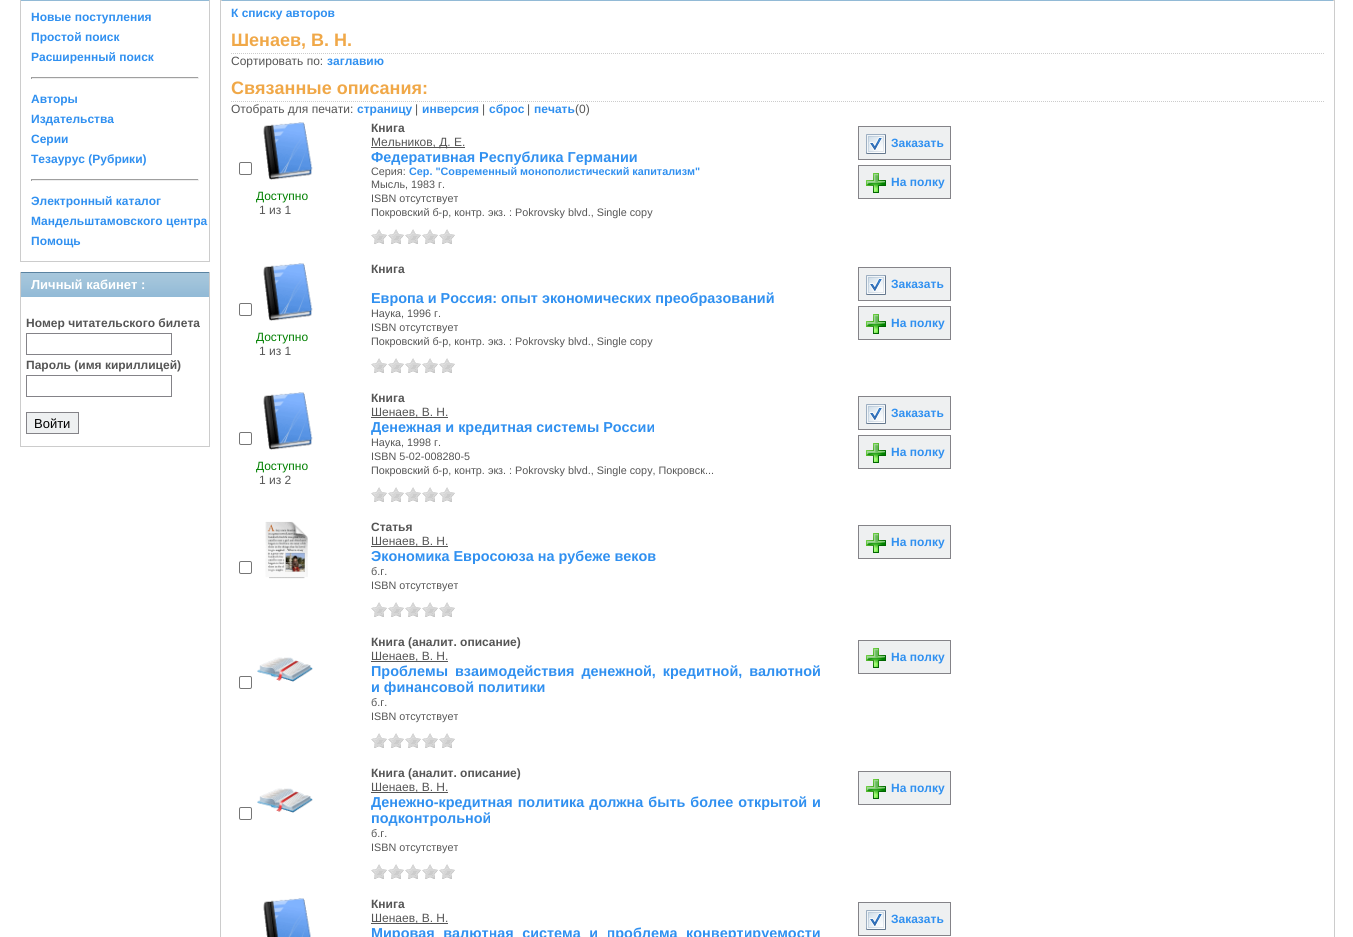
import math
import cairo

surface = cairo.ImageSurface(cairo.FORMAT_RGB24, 1353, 937)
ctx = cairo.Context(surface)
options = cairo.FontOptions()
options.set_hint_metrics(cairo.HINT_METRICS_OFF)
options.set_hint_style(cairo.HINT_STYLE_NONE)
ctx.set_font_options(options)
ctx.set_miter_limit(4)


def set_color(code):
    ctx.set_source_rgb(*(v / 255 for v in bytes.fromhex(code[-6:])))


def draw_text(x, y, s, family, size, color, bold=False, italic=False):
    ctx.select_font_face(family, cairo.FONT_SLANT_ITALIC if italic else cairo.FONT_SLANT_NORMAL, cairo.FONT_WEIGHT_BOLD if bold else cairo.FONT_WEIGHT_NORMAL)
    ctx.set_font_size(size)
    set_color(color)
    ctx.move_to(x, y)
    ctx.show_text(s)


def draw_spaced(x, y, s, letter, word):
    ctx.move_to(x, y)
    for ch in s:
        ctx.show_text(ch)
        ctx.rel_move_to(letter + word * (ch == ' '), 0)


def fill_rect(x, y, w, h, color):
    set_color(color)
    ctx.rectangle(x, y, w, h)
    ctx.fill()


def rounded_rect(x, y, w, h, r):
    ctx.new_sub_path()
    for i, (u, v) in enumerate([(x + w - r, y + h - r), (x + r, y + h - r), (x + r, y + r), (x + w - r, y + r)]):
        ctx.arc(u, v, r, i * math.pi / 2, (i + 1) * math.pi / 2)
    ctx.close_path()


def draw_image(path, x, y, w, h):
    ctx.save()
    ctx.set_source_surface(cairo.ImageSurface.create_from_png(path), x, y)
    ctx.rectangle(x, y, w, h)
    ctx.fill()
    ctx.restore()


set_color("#ffffff")
ctx.paint()
fill_rect(20, 0, 190, 1, "#92bad6")
fill_rect(209, 0, 1, 262, "#cccccc")
fill_rect(20, 0, 1, 1, "#cccccc")
fill_rect(20, 261, 190, 1, "#cccccc")
fill_rect(20, 1, 1, 261, "#cccccc")
draw_text(31, 21, "Новые поступления", "Liberation Sans", 12, "#3090f0", bold=True)
draw_text(31, 41, "Простой поиск", "Liberation Sans", 12, "#3090f0", bold=True)
draw_text(31, 61, "Расширенный поиск", "Liberation Sans", 12, "#3090f0", bold=True)
fill_rect(31, 77, 168, 1, "#9f9f9f")
fill_rect(198, 77, 1, 2, "#eeeeee")
fill_rect(31, 78, 168, 1, "#eeeeee")
fill_rect(31, 77, 1, 2, "#9f9f9f")
draw_text(31, 103, "Авторы", "Liberation Sans", 12, "#3090f0", bold=True)
draw_text(31, 123, "Издательства", "Liberation Sans", 12, "#3090f0", bold=True)
draw_text(31, 143, "Серии", "Liberation Sans", 12, "#3090f0", bold=True)
draw_text(31, 163, "Тезаурус (Рубрики)", "Liberation Sans", 12, "#3090f0", bold=True)
fill_rect(31, 179, 168, 1, "#9f9f9f")
fill_rect(198, 179, 1, 2, "#eeeeee")
fill_rect(31, 180, 168, 1, "#eeeeee")
fill_rect(31, 179, 1, 2, "#9f9f9f")
draw_text(31, 205, "Электронный каталог", "Liberation Sans", 12, "#3090f0", bold=True)
draw_text(31, 225, "Мандельштамовского центра", "Liberation Sans", 12, "#3090f0", bold=True)
draw_text(31, 245, "Помощь", "Liberation Sans", 12, "#3090f0", bold=True)
draw_image("assets/img1.png", 21, 272, 188, 25)
fill_rect(209, 272, 1, 175, "#cccccc")
fill_rect(20, 272, 1, 25, "#cccccc")
draw_text(31, 289, "Личный кабинет :", "Liberation Sans", 13, "#ffffff", bold=True)
fill_rect(20, 446, 190, 1, "#cccccc")
fill_rect(20, 297, 1, 150, "#cccccc")
draw_text(26, 327, "Номер читательского билета", "Liberation Sans", 12, "#555555", bold=True)
ctx.rectangle(26.5, 333.5, 145, 21)
set_color("#848388")
ctx.set_line_width(1)
ctx.stroke()
draw_text(26, 369, "Пароль (имя кириллицей)", "Liberation Sans", 12, "#555555", bold=True)
ctx.rectangle(26.5, 375.5, 145, 21)
set_color("#848388")
ctx.stroke()
set_color("#eef0f1")
ctx.rectangle(26.5, 412.5, 52, 21)
ctx.fill_preserve()
set_color("#848388")
ctx.stroke()
draw_text(34, 428, "Войти", "Liberation Sans", 13, "#000000")
fill_rect(1334, 0, 1, 937, "#cccccc")
fill_rect(220, 0, 1, 937, "#cccccc")
fill_rect(221, 0, 1113, 1, "#92bad6")
fill_rect(1333, 0, 1, 1, "#cccccc")
fill_rect(221, 0, 1, 1, "#cccccc")
draw_text(231, 17, "К списку авторов", "Liberation Sans", 12, "#3090f0", bold=True)
ctx.new_path()
ctx.move_to(231, 53.5)
ctx.line_to(1324, 53.5)
set_color("#cccccc")
ctx.set_dash([1, 1])
ctx.stroke()
draw_text(231, 46, "Шенаев, В. Н.", "Liberation Sans", 18, "#f0a848", bold=True)
draw_text(231, 65, "Сортировать по:", "Liberation Sans", 12, "#555555")
draw_text(327, 65, "заглавию", "Liberation Sans", 12, "#3090f0", bold=True)
ctx.new_path()
ctx.move_to(231, 101.5)
ctx.line_to(1324, 101.5)
set_color("#cccccc")
ctx.stroke()
draw_text(231, 94, "Связанные описания:", "Liberation Sans", 18, "#f0a848", bold=True)
draw_text(231, 113, "Отобрать для печати:", "Liberation Sans", 12, "#555555")
draw_text(357, 113, "страницу", "Liberation Sans", 12, "#3090f0", bold=True)
draw_text(415, 113, "|", "Liberation Sans", 12, "#555555")
draw_text(422, 113, "инверсия", "Liberation Sans", 12, "#3090f0", bold=True)
draw_text(482, 113, "|", "Liberation Sans", 12, "#555555")
draw_text(489, 113, "сброс", "Liberation Sans", 12, "#3090f0", bold=True)
draw_text(527, 113, "|", "Liberation Sans", 12, "#555555")
draw_text(534, 113, "печать", "Liberation Sans", 12, "#3090f0", bold=True)
draw_text(575, 113, "(0)", "Liberation Sans", 12, "#555555")
draw_text(371, 132, "Книга", "Liberation Sans", 12, "#555555", bold=True)
fill_rect(371, 147, 94, 1, "#555555")
draw_text(371, 146, "Мельников, Д. Е.", "Liberation Sans", 12, "#555555")
draw_text(371, 162, "Федеративная Республика Германии", "Liberation Sans", 14.4, "#3090f0", bold=True)
draw_text(371, 175, "Серия:", "Liberation Sans", 10.8, "#555555")
draw_text(409, 175, "Сер. \"Современный монополистический капитализм\"", "Liberation Sans", 10.8, "#3090f0", bold=True)
draw_text(371, 188, "Мысль, 1983 г.", "Liberation Sans", 10.8, "#555555")
draw_text(371, 202, "ISBN отсутствует", "Liberation Sans", 10.8, "#555555")
draw_text(371, 216, "Покровский б-р, контр. экз. : Pokrovsky blvd., Single copy", "Liberation Sans", 10.8, "#555555")
draw_image("assets/img2.png", 371, 229, 16, 15)
draw_image("assets/img2.png", 388, 229, 16, 15)
draw_image("assets/img2.png", 405, 229, 16, 15)
draw_image("assets/img2.png", 422, 229, 16, 15)
draw_image("assets/img2.png", 439, 229, 16, 15)
set_color("#eef0f1")
ctx.rectangle(858.5, 126.5, 92, 33)
ctx.fill_preserve()
set_color("#848388")
ctx.set_dash([])
ctx.stroke()
draw_image("assets/img3.png", 866, 134, 20, 20)
draw_text(891, 147, "Заказать", "Liberation Sans", 12, "#3090f0", bold=True)
set_color("#eef0f1")
ctx.rectangle(858.5, 165.5, 92, 33)
ctx.fill_preserve()
set_color("#848388")
ctx.stroke()
draw_image("assets/img4.png", 866, 173, 20, 20)
draw_text(891, 186, "На полку", "Liberation Sans", 12, "#3090f0", bold=True)
rounded_rect(239.5, 162.5, 12, 12, 1.5)
set_color("#767676")
ctx.stroke()
draw_image("assets/img5.png", 263, 122, 50, 58)
draw_text(256, 200, "Доступно", "Liberation Sans", 12, "#008000")
draw_text(259, 214, "1 из 1", "Liberation Sans", 12, "#555555")
draw_text(371, 273, "Книга", "Liberation Sans", 12, "#555555", bold=True)
draw_text(371, 303, "Европа и Россия: опыт экономических преобразований", "Liberation Sans", 14.4, "#3090f0", bold=True)
draw_text(371, 317, "Наука, 1996 г.", "Liberation Sans", 10.8, "#555555")
draw_text(371, 331, "ISBN отсутствует", "Liberation Sans", 10.8, "#555555")
draw_text(371, 345, "Покровский б-р, контр. экз. : Pokrovsky blvd., Single copy", "Liberation Sans", 10.8, "#555555")
draw_image("assets/img2.png", 371, 358, 16, 15)
draw_image("assets/img2.png", 388, 358, 16, 15)
draw_image("assets/img2.png", 405, 358, 16, 15)
draw_image("assets/img2.png", 422, 358, 16, 15)
draw_image("assets/img2.png", 439, 358, 16, 15)
set_color("#eef0f1")
ctx.rectangle(858.5, 267.5, 92, 33)
ctx.fill_preserve()
set_color("#848388")
ctx.stroke()
draw_image("assets/img3.png", 866, 275, 20, 20)
draw_text(891, 288, "Заказать", "Liberation Sans", 12, "#3090f0", bold=True)
set_color("#eef0f1")
ctx.rectangle(858.5, 306.5, 92, 33)
ctx.fill_preserve()
set_color("#848388")
ctx.stroke()
draw_image("assets/img4.png", 866, 314, 20, 20)
draw_text(891, 327, "На полку", "Liberation Sans", 12, "#3090f0", bold=True)
rounded_rect(239.5, 303.5, 12, 12, 1.5)
set_color("#767676")
ctx.stroke()
draw_image("assets/img5.png", 263, 263, 50, 58)
draw_text(256, 341, "Доступно", "Liberation Sans", 12, "#008000")
draw_text(259, 355, "1 из 1", "Liberation Sans", 12, "#555555")
draw_text(371, 402, "Книга", "Liberation Sans", 12, "#555555", bold=True)
fill_rect(371, 417, 77, 1, "#555555")
draw_text(371, 416, "Шенаев, В. Н.", "Liberation Sans", 12, "#555555")
draw_text(371, 432, "Денежная и кредитная системы России", "Liberation Sans", 14.4, "#3090f0", bold=True)
draw_text(371, 446, "Наука, 1998 г.", "Liberation Sans", 10.8, "#555555")
draw_text(371, 460, "ISBN 5-02-008280-5", "Liberation Sans", 10.8, "#555555")
draw_text(371, 474, "Покровский б-р, контр. экз. : Pokrovsky blvd., Single copy, Покровск...", "Liberation Sans", 10.8, "#555555")
draw_image("assets/img2.png", 371, 487, 16, 15)
draw_image("assets/img2.png", 388, 487, 16, 15)
draw_image("assets/img2.png", 405, 487, 16, 15)
draw_image("assets/img2.png", 422, 487, 16, 15)
draw_image("assets/img2.png", 439, 487, 16, 15)
set_color("#eef0f1")
ctx.rectangle(858.5, 396.5, 92, 33)
ctx.fill_preserve()
set_color("#848388")
ctx.stroke()
draw_image("assets/img3.png", 866, 404, 20, 20)
draw_text(891, 417, "Заказать", "Liberation Sans", 12, "#3090f0", bold=True)
set_color("#eef0f1")
ctx.rectangle(858.5, 435.5, 92, 33)
ctx.fill_preserve()
set_color("#848388")
ctx.stroke()
draw_image("assets/img4.png", 866, 443, 20, 20)
draw_text(891, 456, "На полку", "Liberation Sans", 12, "#3090f0", bold=True)
rounded_rect(239.5, 432.5, 12, 12, 1.5)
set_color("#767676")
ctx.stroke()
draw_image("assets/img5.png", 263, 392, 50, 58)
draw_text(256, 470, "Доступно", "Liberation Sans", 12, "#008000")
draw_text(259, 484, "1 из 2", "Liberation Sans", 12, "#555555")
rounded_rect(239.5, 561.5, 12, 12, 1.5)
set_color("#767676")
ctx.stroke()
draw_image("assets/img6.png", 265, 521, 43, 58)
draw_text(371, 531, "Статья", "Liberation Sans", 12, "#555555", bold=True)
fill_rect(371, 546, 77, 1, "#555555")
draw_text(371, 545, "Шенаев, В. Н.", "Liberation Sans", 12, "#555555")
draw_text(371, 561, "Экономика Евросоюза на рубеже веков", "Liberation Sans", 14.4, "#3090f0", bold=True)
draw_text(371, 575, "б.г.", "Liberation Sans", 10.8, "#555555")
draw_text(371, 589, "ISBN отсутствует", "Liberation Sans", 10.8, "#555555")
draw_image("assets/img2.png", 371, 602, 16, 15)
draw_image("assets/img2.png", 388, 602, 16, 15)
draw_image("assets/img2.png", 405, 602, 16, 15)
draw_image("assets/img2.png", 422, 602, 16, 15)
draw_image("assets/img2.png", 439, 602, 16, 15)
set_color("#eef0f1")
ctx.rectangle(858.5, 525.5, 92, 33)
ctx.fill_preserve()
set_color("#848388")
ctx.stroke()
draw_image("assets/img4.png", 866, 533, 20, 20)
draw_text(891, 546, "На полку", "Liberation Sans", 12, "#3090f0", bold=True)
rounded_rect(239.5, 676.5, 12, 12, 1.5)
set_color("#767676")
ctx.stroke()
draw_image("assets/img7.png", 257, 657, 56, 25)
draw_text(371, 646, "Книга (аналит. описание)", "Liberation Sans", 12, "#555555", bold=True)
fill_rect(371, 661, 77, 1, "#555555")
draw_text(371, 660, "Шенаев, В. Н.", "Liberation Sans", 12, "#555555")
ctx.select_font_face("Liberation Sans", cairo.FONT_SLANT_NORMAL, cairo.FONT_WEIGHT_BOLD)
ctx.set_font_size(14.4)
set_color("#3090f0")
draw_spaced(371, 676, "Проблемы взаимодействия денежной, кредитной, валютной", 0, 3)
draw_text(371, 692, "и финансовой политики", "Liberation Sans", 14.4, "#3090f0", bold=True)
draw_text(371, 706, "б.г.", "Liberation Sans", 10.8, "#555555")
draw_text(371, 720, "ISBN отсутствует", "Liberation Sans", 10.8, "#555555")
draw_image("assets/img2.png", 371, 733, 16, 15)
draw_image("assets/img2.png", 388, 733, 16, 15)
draw_image("assets/img2.png", 405, 733, 16, 15)
draw_image("assets/img2.png", 422, 733, 16, 15)
draw_image("assets/img2.png", 439, 733, 16, 15)
set_color("#eef0f1")
ctx.rectangle(858.5, 640.5, 92, 33)
ctx.fill_preserve()
set_color("#848388")
ctx.stroke()
draw_image("assets/img4.png", 866, 648, 20, 20)
draw_text(891, 661, "На полку", "Liberation Sans", 12, "#3090f0", bold=True)
rounded_rect(239.5, 807.5, 12, 12, 1.5)
set_color("#767676")
ctx.stroke()
draw_image("assets/img7.png", 257, 788, 56, 25)
draw_text(371, 777, "Книга (аналит. описание)", "Liberation Sans", 12, "#555555", bold=True)
fill_rect(371, 792, 77, 1, "#555555")
draw_text(371, 791, "Шенаев, В. Н.", "Liberation Sans", 12, "#555555")
ctx.select_font_face("Liberation Sans", cairo.FONT_SLANT_NORMAL, cairo.FONT_WEIGHT_BOLD)
ctx.set_font_size(14.4)
set_color("#3090f0")
draw_spaced(371, 807, "Денежно-кредитная политика должна быть более открытой и", 0, 1)
draw_text(371, 823, "подконтрольной", "Liberation Sans", 14.4, "#3090f0", bold=True)
draw_text(371, 837, "б.г.", "Liberation Sans", 10.8, "#555555")
draw_text(371, 851, "ISBN отсутствует", "Liberation Sans", 10.8, "#555555")
draw_image("assets/img2.png", 371, 864, 16, 15)
draw_image("assets/img2.png", 388, 864, 16, 15)
draw_image("assets/img2.png", 405, 864, 16, 15)
draw_image("assets/img2.png", 422, 864, 16, 15)
draw_image("assets/img2.png", 439, 864, 16, 15)
set_color("#eef0f1")
ctx.rectangle(858.5, 771.5, 92, 33)
ctx.fill_preserve()
set_color("#848388")
ctx.stroke()
draw_image("assets/img4.png", 866, 779, 20, 20)
draw_text(891, 792, "На полку", "Liberation Sans", 12, "#3090f0", bold=True)
draw_image("assets/img8.png", 263, 898, 48, 39)
draw_text(371, 908, "Книга", "Liberation Sans", 12, "#555555", bold=True)
fill_rect(371, 923, 77, 1, "#555555")
draw_text(371, 922, "Шенаев, В. Н.", "Liberation Sans", 12, "#555555")
ctx.select_font_face("Liberation Sans", cairo.FONT_SLANT_NORMAL, cairo.FONT_WEIGHT_BOLD)
ctx.set_font_size(14.4)
set_color("#3090f0")
draw_spaced(371, 938, "Мировая валютная система и проблема конвертируемости", 0, 4.5)
set_color("#eef0f1")
ctx.rectangle(858.5, 902.5, 92, 33)
ctx.fill_preserve()
set_color("#848388")
ctx.stroke()
draw_image("assets/img3.png", 866, 910, 20, 20)
draw_text(891, 923, "Заказать", "Liberation Sans", 12, "#3090f0", bold=True)
surface.write_to_png("output.png")
